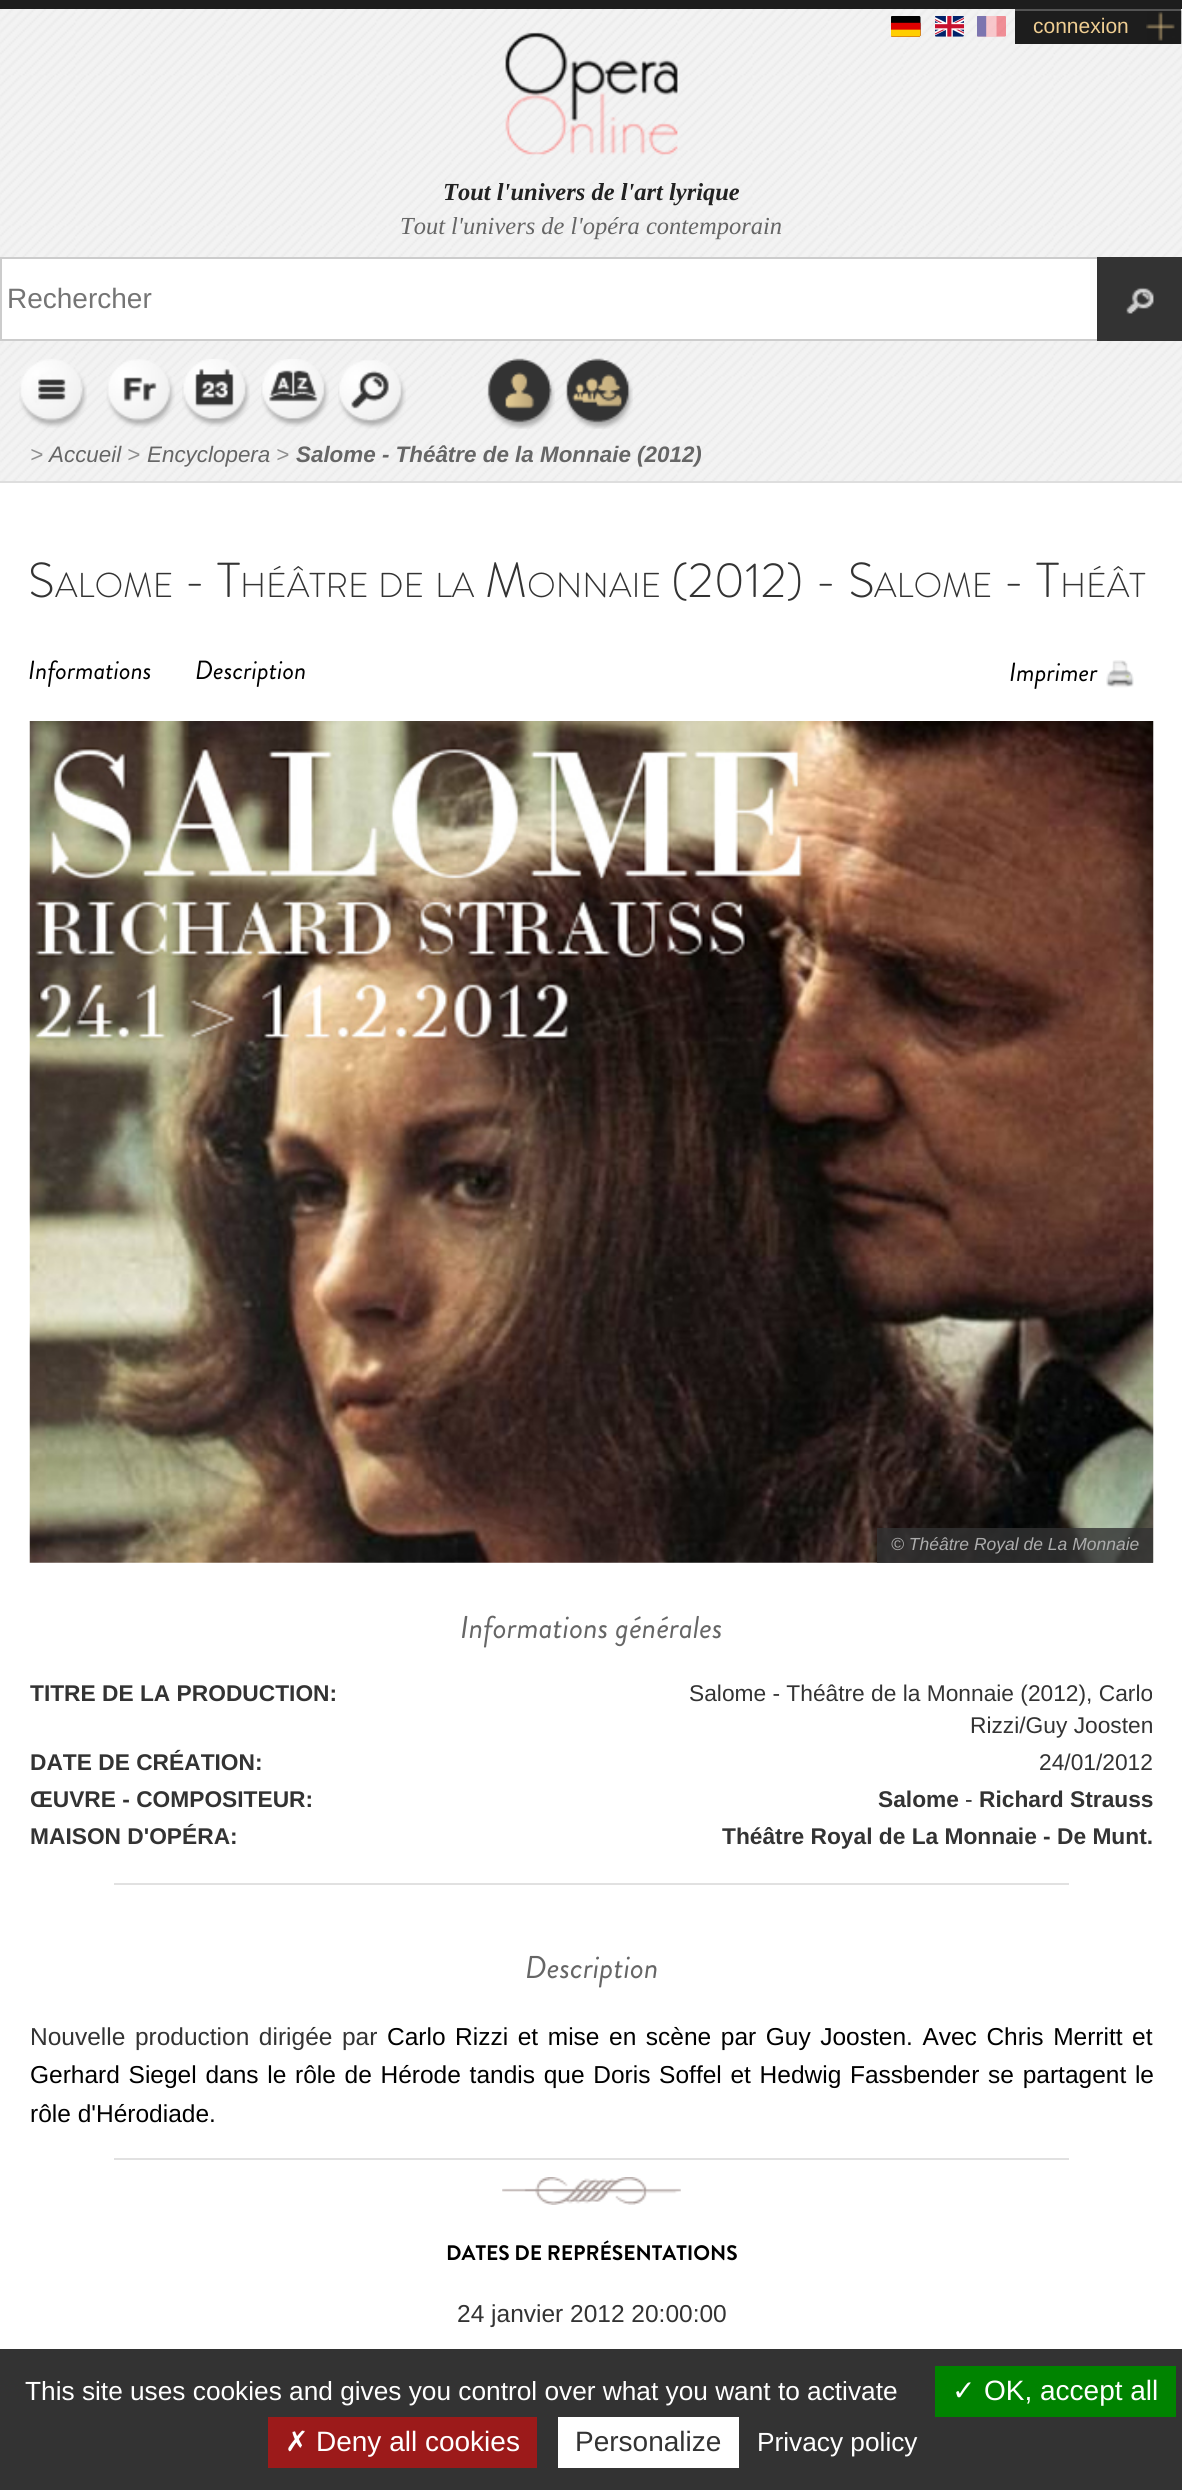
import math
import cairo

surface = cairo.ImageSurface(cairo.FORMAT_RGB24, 1182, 2490)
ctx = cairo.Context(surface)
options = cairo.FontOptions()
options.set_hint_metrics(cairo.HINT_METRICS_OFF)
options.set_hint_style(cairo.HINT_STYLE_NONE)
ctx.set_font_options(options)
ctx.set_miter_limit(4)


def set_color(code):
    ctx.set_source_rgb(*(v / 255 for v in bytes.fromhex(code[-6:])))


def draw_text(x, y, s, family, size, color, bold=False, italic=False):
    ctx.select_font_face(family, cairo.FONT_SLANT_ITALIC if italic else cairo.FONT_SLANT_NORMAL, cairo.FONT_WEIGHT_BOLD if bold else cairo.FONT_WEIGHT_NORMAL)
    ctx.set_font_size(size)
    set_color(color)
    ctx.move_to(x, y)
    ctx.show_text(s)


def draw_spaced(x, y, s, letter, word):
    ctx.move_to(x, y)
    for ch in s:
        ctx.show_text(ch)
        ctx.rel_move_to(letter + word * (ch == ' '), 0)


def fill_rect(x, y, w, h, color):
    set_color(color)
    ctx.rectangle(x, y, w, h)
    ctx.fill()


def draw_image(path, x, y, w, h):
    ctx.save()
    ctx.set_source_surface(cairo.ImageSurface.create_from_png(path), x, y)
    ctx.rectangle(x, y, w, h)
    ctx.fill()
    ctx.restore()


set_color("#ffffff")
ctx.paint()
draw_image("assets/img1.png", 0, 9, 1182, 472)
fill_rect(0, 0, 1182, 9, "#1d1d1d")
draw_image("assets/img2.png", 891, 16, 30, 21)
draw_image("assets/img3.png", 935, 16, 29, 21)
draw_image("assets/img4.png", 977, 16, 29, 21)
fill_rect(1015, 11, 166, 33, "#1d1d1d")
draw_image("assets/img5.png", 1146, 10, 36, 34)
fill_rect(1015, 9, 166, 2, "#545454")
draw_text(1033, 33, "connexion", "Liberation Sans", 21, "#efcd91")
draw_image("assets/img6.png", 505, 32, 173, 123)
draw_text(443, 200, "Tout l'univers de l'art lyrique", "Liberation Serif", 24.5, "#222222", bold=True, italic=True)
draw_text(400, 234, "Tout l'univers de l'opéra contemporain", "Liberation Serif", 24.5, "#666666", italic=True)
fill_rect(2, 259, 1095, 80, "#ffffff")
ctx.rectangle(1, 258, 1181, 82)
set_color("#cccccc")
ctx.stroke()
draw_text(7, 308, "Rechercher", "Liberation Sans", 28, "#757575")
fill_rect(1097, 257, 85, 84, "#333333")
draw_image("assets/img7.png", 1126, 287, 28, 27)
draw_image("assets/img8.png", 19, 359, 68, 69)
draw_image("assets/img9.png", 106, 359, 69, 69)
draw_image("assets/img10.png", 182, 359, 68, 68)
draw_image("assets/img11.png", 261, 359, 68, 68)
draw_image("assets/img12.png", 338, 360, 68, 69)
draw_image("assets/img13.png", 487, 358, 68, 71)
draw_image("assets/img14.png", 565, 358, 68, 71)
fill_rect(0, 481, 1182, 2, "#dedede")
draw_text(30, 462, ">", "Liberation Sans", 22.4, "#909090", italic=True)
draw_text(49, 462, "Accueil", "Liberation Sans", 22.4, "#666666", italic=True)
draw_text(127, 462, ">", "Liberation Sans", 22.4, "#909090", italic=True)
draw_text(147, 462, "Encyclopera", "Liberation Sans", 22.4, "#666666", italic=True)
draw_text(276, 462, ">", "Liberation Sans", 22.4, "#909090", italic=True)
draw_text(296, 462, "Salome - Théâtre de la Monnaie (2012)", "Liberation Sans", 22.4, "#666666", bold=True, italic=True)
draw_text(28, 597, "S", "Brandon Grotesque Light", 49, "#333333")
draw_text(55, 597, "ALOME", "Brandon Grotesque Light", 34.5, "#333333")
draw_text(183, 597, "- T", "Brandon Grotesque Light", 49, "#333333")
draw_text(240, 597, "HÉÂTRE", "Brandon Grotesque Light", 34.5, "#333333")
draw_text(378, 597, "DE", "Brandon Grotesque Light", 34.5, "#333333")
draw_text(435, 597, "LA", "Brandon Grotesque Light", 34.5, "#333333")
draw_text(485, 597, "M", "Brandon Grotesque Light", 49, "#333333")
draw_text(527, 597, "ONNAIE", "Brandon Grotesque Light", 34.5, "#333333")
draw_text(671, 597, "(2012) - S", "Brandon Grotesque Light", 49, "#333333")
draw_text(874, 597, "ALOME", "Brandon Grotesque Light", 34.5, "#333333")
draw_text(1002, 597, "- T", "Brandon Grotesque Light", 49, "#333333")
draw_text(1060, 597, "HÉÂT", "Brandon Grotesque Light", 34.5, "#333333")
draw_text(28, 679, "Informations", "Brandon Grotesque", 26.25, "#000000", italic=True)
draw_text(195, 679, "Description", "Brandon Grotesque", 26.25, "#000000", italic=True)
draw_text(1009, 681, "Imprimer", "Brandon Grotesque", 26.25, "#000000", italic=True)
draw_image("assets/img15.png", 1106, 660, 28, 28)
draw_image("assets/img16.png", 29, 721, 1125, 842)
ctx.set_source_rgba(0.2, 0.2, 0.2, 0.8)
ctx.rectangle(877, 1528, 276, 35)
ctx.fill()
draw_text(891, 1550, "© Théâtre Royal de La Monnaie", "Liberation Sans", 17.5, "#adadad", italic=True)
draw_text(460, 1638, "Informations générales", "Brandon Grotesque", 31.5, "#666666", italic=True)
draw_text(30, 1701, "TITRE DE LA PRODUCTION:", "Liberation Sans", 22.75, "#333333", bold=True)
draw_text(689, 1701, "Salome - Théâtre de la Monnaie (2012), Carlo", "Liberation Sans", 22.75, "#333333")
draw_text(970, 1733, "Rizzi/Guy Joosten", "Liberation Sans", 22.75, "#333333")
draw_text(30, 1770, "DATE DE CRÉATION:", "Liberation Sans", 22.75, "#333333", bold=True)
draw_text(1039, 1770, "24/01/2012", "Liberation Sans", 22.75, "#333333")
draw_text(30, 1807, "ŒUVRE - COMPOSITEUR:", "Liberation Sans", 22.75, "#333333", bold=True)
draw_text(878, 1807, "Salome", "Liberation Sans", 22.75, "#333333", bold=True)
draw_text(965, 1807, "-", "Liberation Sans", 22.75, "#333333")
draw_text(979, 1807, "Richard Strauss", "Liberation Sans", 22.75, "#333333", bold=True)
draw_text(30, 1844, "MAISON D'OPÉRA:", "Liberation Sans", 22.75, "#333333", bold=True)
draw_text(722, 1844, "Théâtre Royal de La Monnaie - De Munt.", "Liberation Sans", 22.75, "#333333", bold=True)
fill_rect(114, 1883, 955, 2, "#e1e1e1")
draw_text(525, 1978, "Description", "Brandon Grotesque", 31.5, "#666666", italic=True)
ctx.select_font_face("Liberation Sans")
ctx.set_font_size(24.5)
set_color("#333333")
draw_spaced(30, 2045, "Nouvelle production dirigée par", 0, 2.75)
set_color("#000000")
draw_spaced(387, 2045, "Carlo Rizzi et mise en scène par Guy Joosten. Avec Chris Merritt et", 0, 2.75)
draw_spaced(30, 2083, "Gerhard Siegel dans le rôle de Hérode tandis que Doris Soffel et Hedwig Fassbender se partagent le", 0, 1.9)
draw_text(30, 2122, "rôle d'Hérodiade.", "Liberation Sans", 24.5, "#000000")
fill_rect(114, 2158, 955, 2, "#e1e1e1")
draw_image("assets/img17.png", 502, 2177, 179, 28)
draw_text(446, 2260, "DATES DE REPRÉSENTATIONS", "Brandon Grotesque", 21, "#000000", bold=True)
draw_text(457, 2322, "24 janvier 2012 20:00:00", "Liberation Sans", 24.5, "#333333")
fill_rect(0, 2349, 1182, 141, "#333333")
draw_text(25, 2400, "This site uses cookies and gives you control over what you want to activate", "Liberation Sans", 26.25, "#ffffff")
fill_rect(935, 2366, 241, 51, "#008300")
draw_text(952, 2400, "✓", "DejaVu Sans", 28, "#ffffff")
draw_text(984, 2400, "OK, accept all", "Liberation Sans", 28, "#ffffff")
fill_rect(268, 2417, 269, 51, "#9c1a1a")
draw_text(285, 2451, "✗", "DejaVu Sans", 28, "#ffffff")
draw_text(316, 2451, "Deny all cookies", "Liberation Sans", 28, "#ffffff")
fill_rect(558, 2417, 181, 51, "#ffffff")
draw_text(575, 2451, "Personalize", "Liberation Sans", 28, "#333333")
draw_text(757, 2451, "Privacy policy", "Liberation Sans", 26.25, "#ffffff")
surface.write_to_png("output.png")
